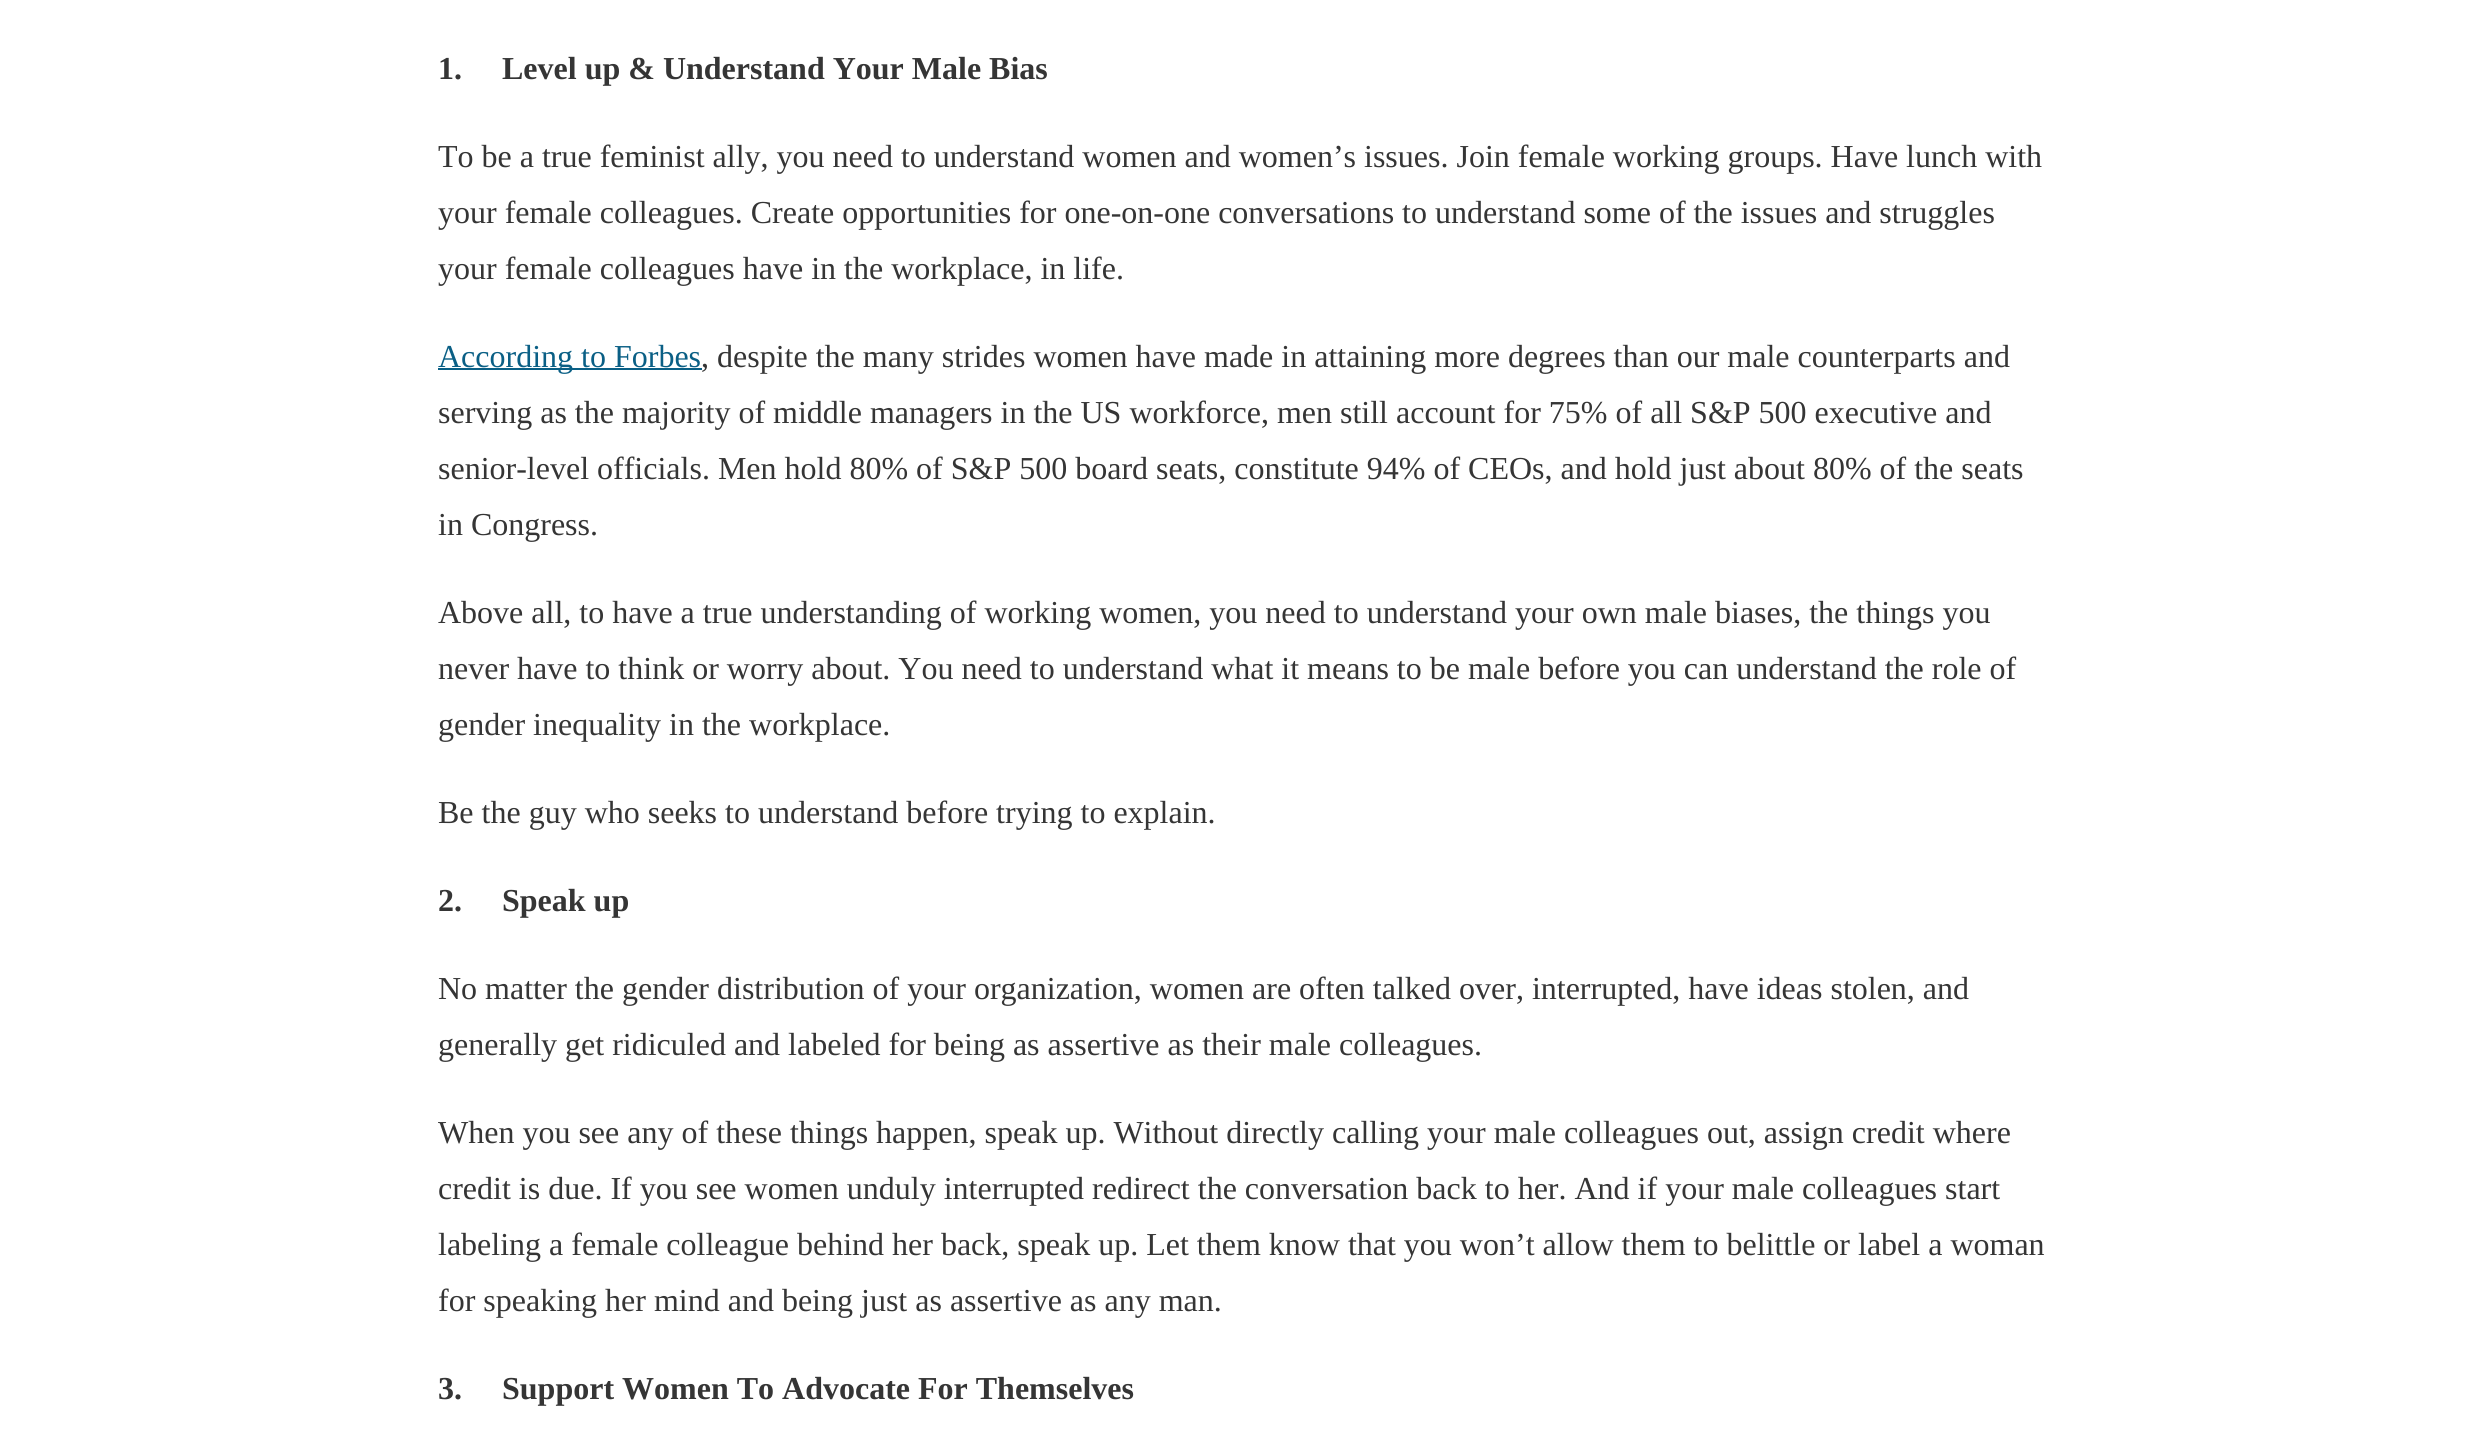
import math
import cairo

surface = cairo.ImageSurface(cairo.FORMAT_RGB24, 2492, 1452)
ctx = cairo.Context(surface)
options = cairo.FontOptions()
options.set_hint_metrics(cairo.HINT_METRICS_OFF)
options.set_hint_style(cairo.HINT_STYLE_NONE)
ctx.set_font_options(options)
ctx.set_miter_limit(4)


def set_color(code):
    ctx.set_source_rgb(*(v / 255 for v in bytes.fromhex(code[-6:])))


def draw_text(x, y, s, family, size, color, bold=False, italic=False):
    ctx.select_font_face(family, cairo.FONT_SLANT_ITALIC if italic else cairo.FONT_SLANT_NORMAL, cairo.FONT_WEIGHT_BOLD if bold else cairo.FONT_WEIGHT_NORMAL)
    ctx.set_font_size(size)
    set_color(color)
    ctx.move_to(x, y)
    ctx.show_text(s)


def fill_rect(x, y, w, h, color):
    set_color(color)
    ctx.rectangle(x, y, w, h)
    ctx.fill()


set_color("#ffffff")
ctx.paint()
draw_text(438, 79, "1.     Level up & Understand Your Male Bias", "Liberation Serif", 32, "#353535", bold=True)
draw_text(438, 167, "To be a true feminist ally, you need to understand women and women’s issues. Join female working groups. Have lunch with", "Liberation Serif", 32, "#353535")
draw_text(438, 223, "your female colleagues. Create opportunities for one-on-one conversations to understand some of the issues and struggles", "Liberation Serif", 32, "#353535")
draw_text(438, 279, "your female colleagues have in the workplace, in life.", "Liberation Serif", 32, "#353535")
fill_rect(438, 368, 264, 2, "#0a5f85")
draw_text(438, 367, "According to Forbes", "Liberation Serif", 32, "#0a5f85")
draw_text(701, 367, ", despite the many strides women have made in attaining more degrees than our male counterparts and", "Liberation Serif", 32, "#353535")
draw_text(438, 423, "serving as the majority of middle managers in the US workforce, men still account for 75% of all S&P 500 executive and", "Liberation Serif", 32, "#353535")
draw_text(438, 479, "senior-level officials. Men hold 80% of S&P 500 board seats, constitute 94% of CEOs, and hold just about 80% of the seats", "Liberation Serif", 32, "#353535")
draw_text(438, 535, "in Congress.", "Liberation Serif", 32, "#353535")
draw_text(438, 623, "Above all, to have a true understanding of working women, you need to understand your own male biases, the things you", "Liberation Serif", 32, "#353535")
draw_text(438, 679, "never have to think or worry about. You need to understand what it means to be male before you can understand the role of", "Liberation Serif", 32, "#353535")
draw_text(438, 735, "gender inequality in the workplace.", "Liberation Serif", 32, "#353535")
draw_text(438, 823, "Be the guy who seeks to understand before trying to explain.", "Liberation Serif", 32, "#353535")
draw_text(438, 911, "2.     Speak up", "Liberation Serif", 32, "#353535", bold=True)
draw_text(438, 999, "No matter the gender distribution of your organization, women are often talked over, interrupted, have ideas stolen, and", "Liberation Serif", 32, "#353535")
draw_text(438, 1055, "generally get ridiculed and labeled for being as assertive as their male colleagues.", "Liberation Serif", 32, "#353535")
draw_text(438, 1143, "When you see any of these things happen, speak up. Without directly calling your male colleagues out, assign credit where", "Liberation Serif", 32, "#353535")
draw_text(438, 1199, "credit is due. If you see women unduly interrupted redirect the conversation back to her. And if your male colleagues start", "Liberation Serif", 32, "#353535")
draw_text(438, 1255, "labeling a female colleague behind her back, speak up. Let them know that you won’t allow them to belittle or label a woman", "Liberation Serif", 32, "#353535")
draw_text(438, 1311, "for speaking her mind and being just as assertive as any man.", "Liberation Serif", 32, "#353535")
draw_text(438, 1399, "3.     Support Women To Advocate For Themselves", "Liberation Serif", 32, "#353535", bold=True)
surface.write_to_png("output.png")
